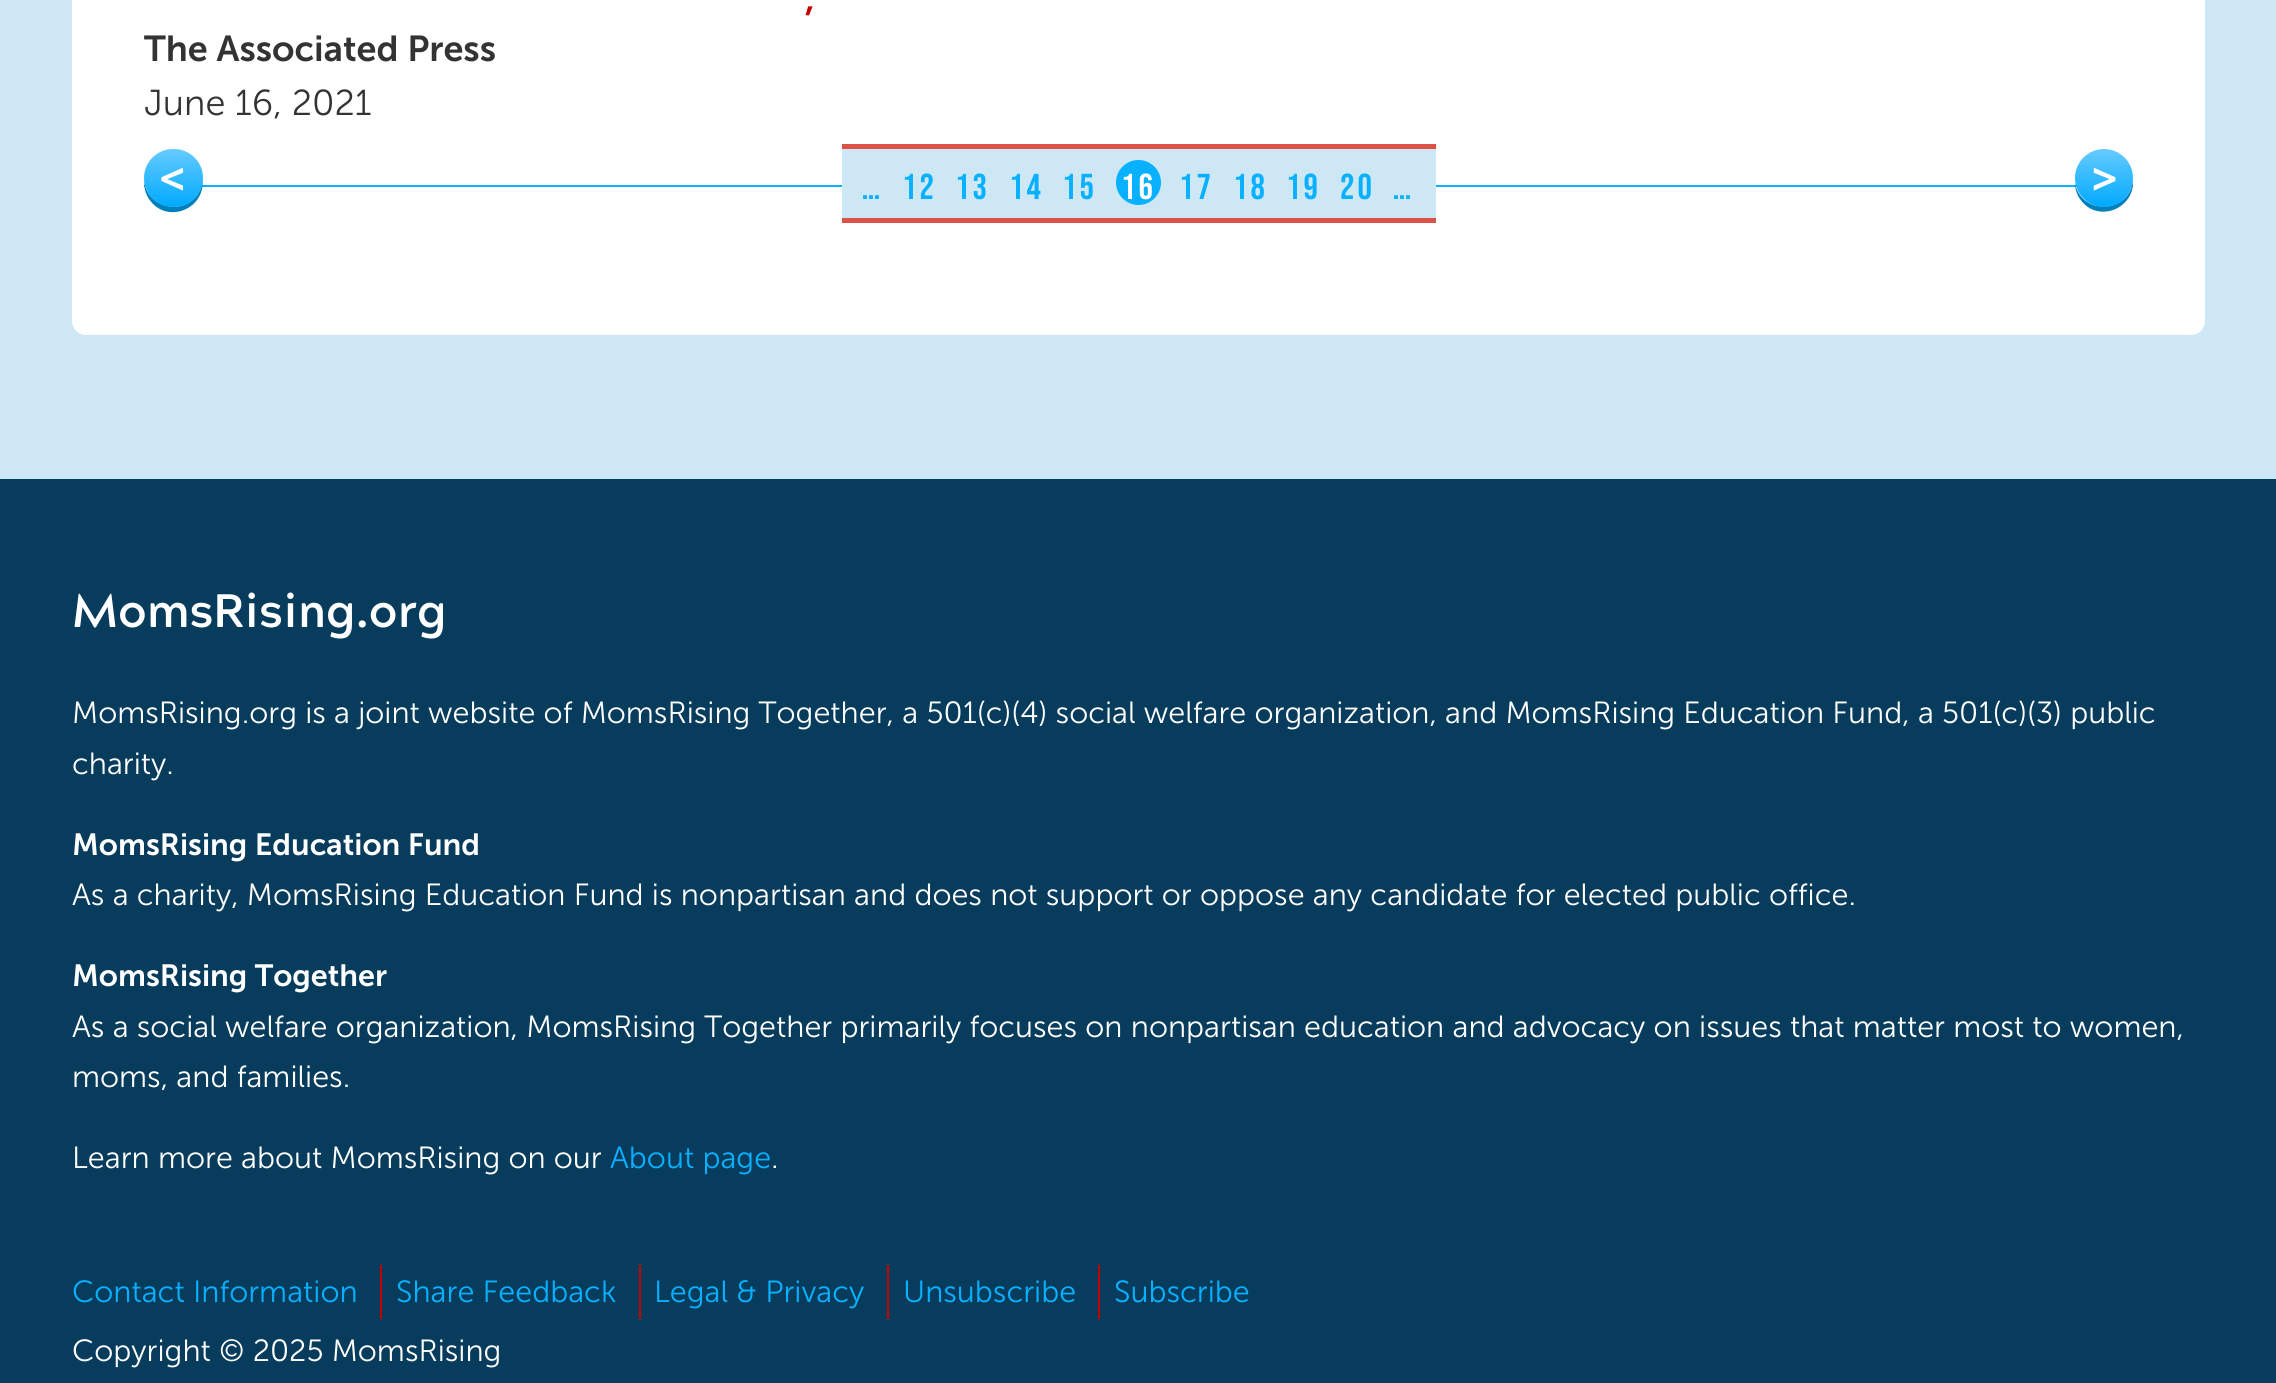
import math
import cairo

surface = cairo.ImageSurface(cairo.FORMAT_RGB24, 2276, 1383)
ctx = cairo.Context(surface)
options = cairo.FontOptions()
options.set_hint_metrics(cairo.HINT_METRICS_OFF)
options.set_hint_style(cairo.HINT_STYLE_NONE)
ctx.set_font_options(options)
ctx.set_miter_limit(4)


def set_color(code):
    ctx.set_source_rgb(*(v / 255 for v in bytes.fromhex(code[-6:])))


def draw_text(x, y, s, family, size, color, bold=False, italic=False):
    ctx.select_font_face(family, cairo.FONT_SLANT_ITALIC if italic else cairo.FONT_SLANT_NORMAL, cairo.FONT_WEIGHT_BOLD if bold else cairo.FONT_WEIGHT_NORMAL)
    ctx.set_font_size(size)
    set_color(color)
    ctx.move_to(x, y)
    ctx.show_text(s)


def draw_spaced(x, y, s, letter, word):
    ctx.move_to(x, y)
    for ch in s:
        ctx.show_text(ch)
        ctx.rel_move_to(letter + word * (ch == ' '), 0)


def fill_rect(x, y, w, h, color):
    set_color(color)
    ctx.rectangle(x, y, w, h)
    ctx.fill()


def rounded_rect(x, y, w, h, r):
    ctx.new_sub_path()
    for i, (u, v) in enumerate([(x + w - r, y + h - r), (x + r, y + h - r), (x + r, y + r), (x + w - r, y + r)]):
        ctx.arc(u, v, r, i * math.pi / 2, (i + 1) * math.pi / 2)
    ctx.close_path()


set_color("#cde8f4")
ctx.paint()
set_color("#ffffff")
rounded_rect(72, -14, 2133, 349, 14)
ctx.fill()
draw_text(805, 11, ",", "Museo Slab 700 SemiBold", 36, "#c80000")
draw_text(144, 61, "The Associated Press", "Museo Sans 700 SemiBold", 36, "#333333")
draw_text(144, 115, "June 16, 2021", "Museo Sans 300 Light", 36, "#333333")
fill_rect(144, 185, 1989, 2, "#08b1ff")
fill_rect(842, 149, 594, 69, "#cde8f4")
fill_rect(842, 144, 594, 5, "#dd5246")
fill_rect(842, 218, 594, 5, "#dd5246")
set_color("#0080ba")
ctx.new_path()
ctx.move_to(144, 180)
ctx.curve_to(144, 187, 145, 193, 149, 199)
ctx.curve_to(167, 226, 208, 208, 202, 177)
ctx.curve_to(203, 183, 201, 189, 198, 194)
ctx.curve_to(182, 217, 146, 207, 144, 180)
ctx.close_path()
ctx.fill()
gradient = cairo.LinearGradient(173, 149, 173, 207)
gradient.add_color_stop_rgba(0, 0.4, 0.796, 1, 1)
gradient.add_color_stop_rgba(1, 0, 0.663, 1, 1)
ctx.set_source(gradient)
rounded_rect(144, 149, 59, 58, 29)
ctx.fill()
draw_text(159, 192, "<", "Museo Slab 700 SemiBold", 45, "#ffffff")
ctx.select_font_face("Bebas Neue")
ctx.set_font_size(36)
set_color("#08b1ff")
draw_spaced(862, 199, "…", 3, 0)
draw_spaced(902, 199, "12", 3, 0)
draw_spaced(955, 199, "13", 3, 0)
draw_spaced(1009, 199, "14", 3, 0)
draw_spaced(1062, 199, "15", 3, 0)
ctx.new_path()
ctx.arc(1138.5, 182.5, 22.5, 0, 2 * math.pi)
ctx.fill()
set_color("#ffffff")
draw_spaced(1121, 199, "16", 3, 0)
set_color("#08b1ff")
draw_spaced(1179, 199, "17", 3, 0)
draw_spaced(1233, 199, "18", 3, 0)
draw_spaced(1286, 199, "19", 3, 0)
draw_spaced(1340, 199, "20", 3, 0)
draw_spaced(1393, 199, "…", 3, 0)
set_color("#0080ba")
ctx.new_path()
ctx.move_to(2075, 183)
ctx.curve_to(2075, 189, 2077, 195, 2080, 199)
ctx.curve_to(2097, 224, 2135, 209, 2133, 180)
ctx.curve_to(2130, 214, 2081, 216, 2075, 183)
ctx.close_path()
ctx.fill()
gradient = cairo.LinearGradient(2104, 149, 2104, 207)
gradient.add_color_stop_rgba(0, 0.4, 0.796, 1, 1)
gradient.add_color_stop_rgba(1, 0, 0.663, 1, 1)
ctx.set_source(gradient)
ctx.arc(2104, 178, 29, 0, 2 * math.pi)
ctx.fill()
draw_text(2090, 192, ">", "Museo Slab 700 SemiBold", 45, "#ffffff")
fill_rect(0, 479, 2276, 904, "#083c5d")
draw_text(72, 627, "MomsRising.org", "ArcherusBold", 46.75, "#ffffff", bold=True)
draw_text(72, 723, "MomsRising.org is a joint website of MomsRising Together, a 501(c)(4) social welfare organization, and MomsRising Education Fund, a 501(c)(3) public", "Museo Sans 300 Light", 30.6, "#ffffff")
draw_text(72, 774, "charity.", "Museo Sans 300 Light", 30.6, "#ffffff")
draw_text(72, 855, "MomsRising Education Fund", "Museo Sans 700 SemiBold", 30.6, "#ffffff")
draw_text(72, 905, "As a charity, MomsRising Education Fund is nonpartisan and does not support or oppose any candidate for elected public office.", "Museo Sans 300 Light", 30.6, "#ffffff")
draw_text(72, 986, "MomsRising Together", "Museo Sans 700 SemiBold", 30.6, "#ffffff")
draw_text(72, 1037, "As a social welfare organization, MomsRising Together primarily focuses on nonpartisan education and advocacy on issues that matter most to women,", "Museo Sans 300 Light", 30.6, "#ffffff")
draw_text(72, 1087, "moms, and families.", "Museo Sans 300 Light", 30.6, "#ffffff")
draw_text(72, 1168, "Learn more about MomsRising on our", "Museo Sans 300 Light", 30.6, "#ffffff")
draw_text(610, 1168, "About page", "Museo Sans 300 Light", 30.6, "#08b1ff")
draw_text(771, 1168, ".", "Museo Sans 300 Light", 30.6, "#ffffff")
fill_rect(380, 1265, 2, 54, "#c80000")
draw_text(72, 1302, "Contact Information", "Museo Sans 300 Light", 30.6, "#08b1ff")
fill_rect(639, 1265, 2, 54, "#c80000")
draw_text(396, 1302, "Share Feedback", "Museo Sans 300 Light", 30.6, "#08b1ff")
fill_rect(887, 1265, 2, 54, "#c80000")
draw_text(654, 1302, "Legal & Privacy", "Museo Sans 300 Light", 30.6, "#08b1ff")
fill_rect(1098, 1265, 2, 54, "#c80000")
draw_text(903, 1302, "Unsubscribe", "Museo Sans 300 Light", 30.6, "#08b1ff")
draw_text(1114, 1302, "Subscribe", "Museo Sans 300 Light", 30.6, "#08b1ff")
draw_text(72, 1361, "Copyright © 2025 MomsRising", "Museo Sans 300 Light", 30.6, "#ffffff")
surface.write_to_png("output.png")
